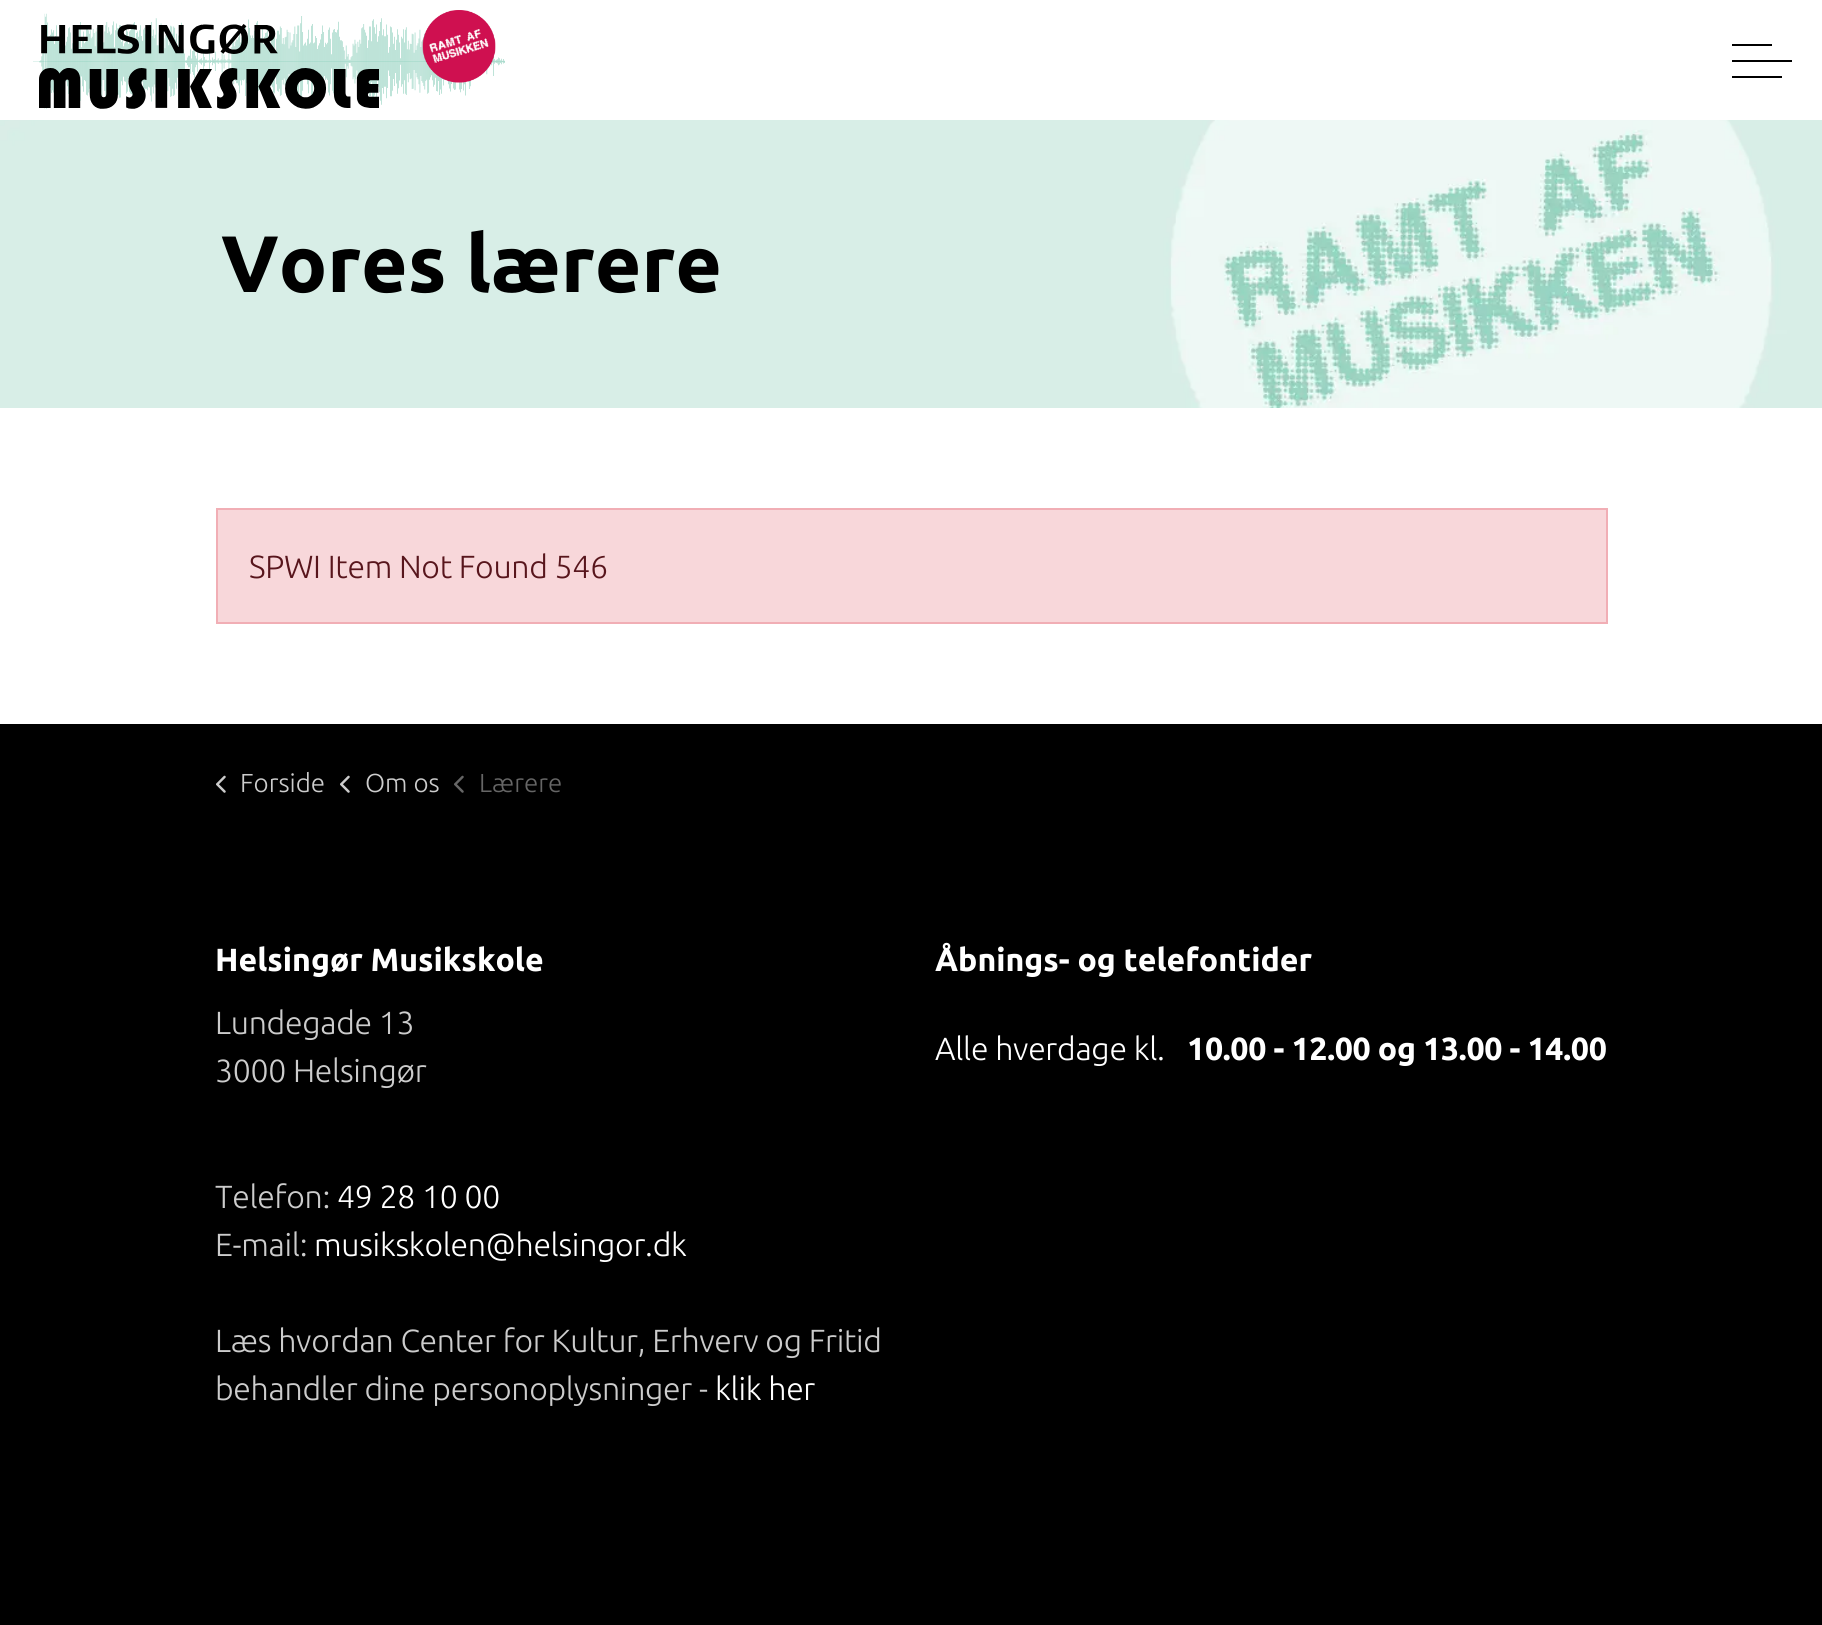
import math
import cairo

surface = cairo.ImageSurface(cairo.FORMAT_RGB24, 1822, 1625)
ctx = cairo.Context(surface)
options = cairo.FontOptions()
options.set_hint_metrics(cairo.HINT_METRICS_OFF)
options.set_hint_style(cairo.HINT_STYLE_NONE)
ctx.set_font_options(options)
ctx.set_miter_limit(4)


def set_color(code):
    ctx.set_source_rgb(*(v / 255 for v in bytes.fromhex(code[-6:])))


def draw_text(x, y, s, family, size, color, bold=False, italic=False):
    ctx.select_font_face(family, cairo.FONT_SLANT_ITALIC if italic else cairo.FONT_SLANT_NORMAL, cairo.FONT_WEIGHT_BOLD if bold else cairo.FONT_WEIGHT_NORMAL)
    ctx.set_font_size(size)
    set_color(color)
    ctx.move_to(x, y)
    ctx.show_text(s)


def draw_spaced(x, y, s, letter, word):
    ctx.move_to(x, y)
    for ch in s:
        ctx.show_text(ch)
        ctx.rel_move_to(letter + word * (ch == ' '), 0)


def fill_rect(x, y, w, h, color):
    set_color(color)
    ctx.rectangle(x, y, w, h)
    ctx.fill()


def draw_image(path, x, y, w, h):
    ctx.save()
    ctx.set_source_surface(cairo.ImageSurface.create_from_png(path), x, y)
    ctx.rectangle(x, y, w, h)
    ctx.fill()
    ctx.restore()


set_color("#ffffff")
ctx.paint()
draw_image("assets/img1.png", 33, 10, 472, 99)
fill_rect(1732, 60, 60, 2, "#000000")
fill_rect(1732, 44, 40, 2, "#000000")
fill_rect(1732, 76, 50, 2, "#000000")
draw_image("assets/img2.png", 0, 120, 1822, 288)
draw_text(221, 292, "Vores lærere", "Ubuntu", 80, "#000000", bold=True)
set_color("#f8d7da")
ctx.rectangle(217, 509, 1390, 114)
ctx.fill_preserve()
set_color("#f1aeb5")
ctx.stroke()
ctx.select_font_face("Ubuntu Light")
ctx.set_font_size(32)
set_color("#58151c")
draw_spaced(249, 578, "SPWI Item Not Found 546", -0.3, 0)
fill_rect(0, 724, 1822, 901, "#000000")
draw_image("assets/img3.png", 216, 775, 10, 18)
draw_text(240, 792, "Forside", "Ubuntu Light", 26, "#cccccc")
draw_image("assets/img3.png", 340, 775, 10, 18)
draw_text(365, 792, "Om os", "Ubuntu Light", 26, "#cccccc")
draw_image("assets/img4.png", 454, 775, 10, 18)
draw_text(479, 792, "Lærere", "Ubuntu Light", 26, "#666666")
draw_text(215, 971, "Helsingør Musikskole", "Ubuntu", 32, "#ffffff", bold=True)
ctx.select_font_face("Ubuntu Light")
set_color("#cccccc")
draw_spaced(215, 1034, "Lundegade 13", -0.3, 0)
draw_spaced(215, 1082, "3000 Helsingør", -0.3, 0)
draw_spaced(215, 1208, "Telefon:", -0.3, 0)
set_color("#ffffff")
draw_spaced(337, 1208, "49 28 10 00", -0.3, 0)
set_color("#cccccc")
draw_spaced(215, 1256, "E-mail:", -0.3, 0)
set_color("#ffffff")
draw_spaced(314, 1256, "musikskolen@helsingor.dk", -0.3, 0)
set_color("#cccccc")
draw_spaced(215, 1352, "Læs hvordan Center for Kultur, Erhverv og Fritid", -0.3, 0)
draw_spaced(215, 1400, "behandler dine personoplysninger -", -0.3, 0)
set_color("#ffffff")
draw_spaced(715, 1400, "klik her", -0.3, 0)
draw_text(935, 971, "Åbnings- og telefontider", "Ubuntu", 32, "#ffffff", bold=True)
ctx.select_font_face("Ubuntu Light")
draw_spaced(935, 1060, "Alle hverdage kl.", -0.3, 0)
ctx.select_font_face("Ubuntu", cairo.FONT_SLANT_NORMAL, cairo.FONT_WEIGHT_BOLD)
draw_spaced(1187, 1060, "10.00 - 12.00 og 13.00 - 14.00", -0.3, 0)
surface.write_to_png("output.png")
